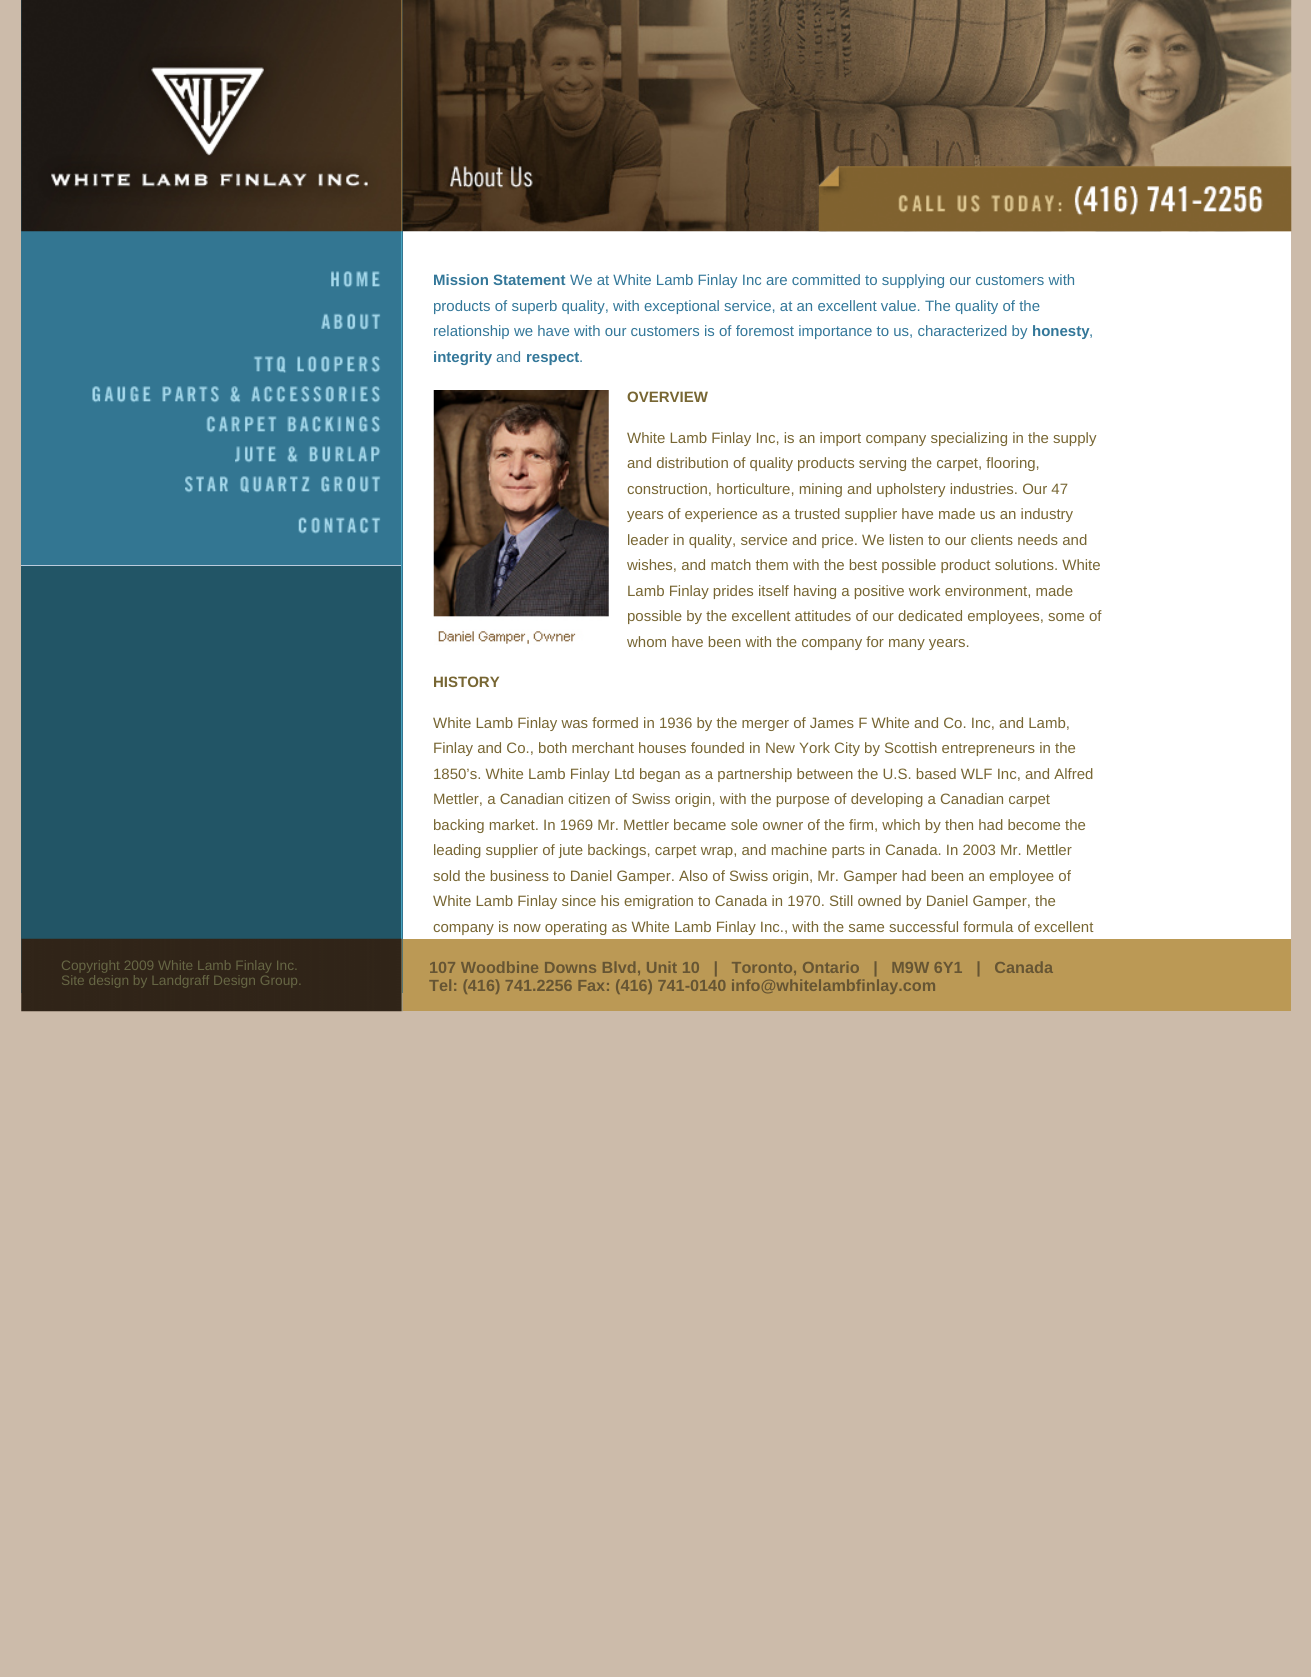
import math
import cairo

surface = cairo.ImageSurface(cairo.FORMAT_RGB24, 1311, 1677)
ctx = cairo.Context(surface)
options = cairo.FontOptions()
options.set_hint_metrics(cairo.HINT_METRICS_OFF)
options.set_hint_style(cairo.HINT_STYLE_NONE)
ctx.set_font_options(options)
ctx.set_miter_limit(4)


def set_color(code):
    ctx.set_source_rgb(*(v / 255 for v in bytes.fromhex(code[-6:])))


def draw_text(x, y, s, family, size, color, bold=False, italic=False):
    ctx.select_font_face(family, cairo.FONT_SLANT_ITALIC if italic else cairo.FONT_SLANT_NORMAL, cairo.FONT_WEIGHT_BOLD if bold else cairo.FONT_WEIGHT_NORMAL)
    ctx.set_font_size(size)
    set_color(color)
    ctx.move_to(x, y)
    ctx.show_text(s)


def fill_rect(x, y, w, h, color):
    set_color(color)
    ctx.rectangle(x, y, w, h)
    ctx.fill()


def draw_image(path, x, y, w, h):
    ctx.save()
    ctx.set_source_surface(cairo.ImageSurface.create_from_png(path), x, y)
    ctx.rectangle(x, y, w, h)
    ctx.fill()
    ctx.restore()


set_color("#ccbbaa")
ctx.paint()
fill_rect(21, 0, 382, 993, "#337692")
fill_rect(401, 231, 1, 708, "#4aa6c1")
draw_image("assets/img1.png", 21, 0, 382, 232)
fill_rect(401, 0, 1, 231, "#836738")
draw_image("assets/img2.png", 331, 271, 50, 17)
draw_image("assets/img3.png", 321, 313, 60, 17)
draw_image("assets/img4.png", 253, 356, 128, 17)
draw_image("assets/img5.png", 92, 386, 289, 17)
draw_image("assets/img6.png", 206, 416, 175, 17)
draw_image("assets/img7.png", 235, 446, 146, 17)
draw_image("assets/img8.png", 185, 476, 196, 17)
draw_image("assets/img9.png", 298, 517, 83, 17)
fill_rect(21, 566, 380, 373, "#225566")
fill_rect(21, 565, 380, 1, "#bbccdd")
fill_rect(403, 231, 888, 708, "#ffffff")
draw_image("assets/img10.png", 402, 0, 890, 232)
draw_image("assets/img11.png", 818, 166, 474, 66)
draw_text(433, 285, "Mission Statement", "Liberation Sans", 15, "#337799", bold=True)
draw_text(570, 285, "We at White Lamb Finlay Inc are committed to supplying our customers with", "Liberation Sans", 15, "#337799")
draw_text(433, 311, "products of superb quality, with exceptional service, at an excellent value. The quality of the", "Liberation Sans", 15, "#337799")
draw_text(433, 336, "relationship we have with our customers is of foremost importance to us, characterized by", "Liberation Sans", 15, "#337799")
draw_text(1032, 336, "honesty", "Liberation Sans", 15, "#337799", bold=True)
draw_text(1089, 336, ",", "Liberation Sans", 15, "#337799")
draw_text(433, 362, "integrity", "Liberation Sans", 15, "#337799", bold=True)
draw_text(496, 362, "and", "Liberation Sans", 15, "#337799")
draw_text(526, 362, "respect", "Liberation Sans", 15, "#337799", bold=True)
draw_text(579, 362, ".", "Liberation Sans", 15, "#337799")
draw_image("assets/img12.png", 433, 390, 176, 255)
draw_text(627, 402, "OVERVIEW", "Liberation Sans", 15, "#776633", bold=True)
draw_text(627, 443, "White Lamb Finlay Inc, is an import company specializing in the supply", "Liberation Sans", 15, "#776633")
draw_text(627, 468, "and distribution of quality products serving the carpet, flooring,", "Liberation Sans", 15, "#776633")
draw_text(627, 494, "construction, horticulture, mining and upholstery industries. Our 47", "Liberation Sans", 15, "#776633")
draw_text(627, 519, "years of experience as a trusted supplier have made us an industry", "Liberation Sans", 15, "#776633")
draw_text(627, 545, "leader in quality, service and price. We listen to our clients needs and", "Liberation Sans", 15, "#776633")
draw_text(627, 570, "wishes, and match them with the best possible product solutions. White", "Liberation Sans", 15, "#776633")
draw_text(627, 596, "Lamb Finlay prides itself having a positive work environment, made", "Liberation Sans", 15, "#776633")
draw_text(627, 621, "possible by the excellent attitudes of our dedicated employees, some of", "Liberation Sans", 15, "#776633")
draw_text(627, 647, "whom have been with the company for many years.", "Liberation Sans", 15, "#776633")
draw_text(433, 687, "HISTORY", "Liberation Sans", 15, "#776633", bold=True)
draw_text(433, 728, "White Lamb Finlay was formed in 1936 by the merger of James F White and Co. Inc, and Lamb,", "Liberation Sans", 15, "#776633")
draw_text(433, 753, "Finlay and Co., both merchant houses founded in New York City by Scottish entrepreneurs in the", "Liberation Sans", 15, "#776633")
draw_text(433, 779, "1850’s. White Lamb Finlay Ltd began as a partnership between the U.S. based WLF Inc, and Alfred", "Liberation Sans", 15, "#776633")
draw_text(433, 804, "Mettler, a Canadian citizen of Swiss origin, with the purpose of developing a Canadian carpet", "Liberation Sans", 15, "#776633")
draw_text(433, 830, "backing market. In 1969 Mr. Mettler became sole owner of the firm, which by then had become the", "Liberation Sans", 15, "#776633")
draw_text(433, 855, "leading supplier of jute backings, carpet wrap, and machine parts in Canada. In 2003 Mr. Mettler", "Liberation Sans", 15, "#776633")
draw_text(433, 881, "sold the business to Daniel Gamper. Also of Swiss origin, Mr. Gamper had been an employee of", "Liberation Sans", 15, "#776633")
draw_text(433, 906, "White Lamb Finlay since his emigration to Canada in 1970. Still owned by Daniel Gamper, the", "Liberation Sans", 15, "#776633")
draw_text(433, 932, "company is now operating as White Lamb Finlay Inc., with the same successful formula of excellent", "Liberation Sans", 15, "#776633")
draw_image("assets/img13.png", 21, 938, 382, 74)
draw_text(61, 970, "Copyright 2009 White Lamb Finlay Inc.", "Liberation Sans", 13.75, "#666644")
draw_text(61, 985, "Site design by Landgraff Design Group.", "Liberation Sans", 13.75, "#666644")
fill_rect(403, 939, 888, 72, "#bb9955")
draw_text(429, 973, "107 Woodbine Downs Blvd, Unit 10   |   Toronto, Ontario   |   M9W 6Y1   |   Canada", "Liberation Sans", 16.25, "#665533", bold=True)
draw_text(429, 991, "Tel: (416) 741.2256 Fax: (416) 741-0140 info@whitelambfinlay.com", "Liberation Sans", 16.25, "#665533", bold=True)
surface.write_to_png("output.png")
